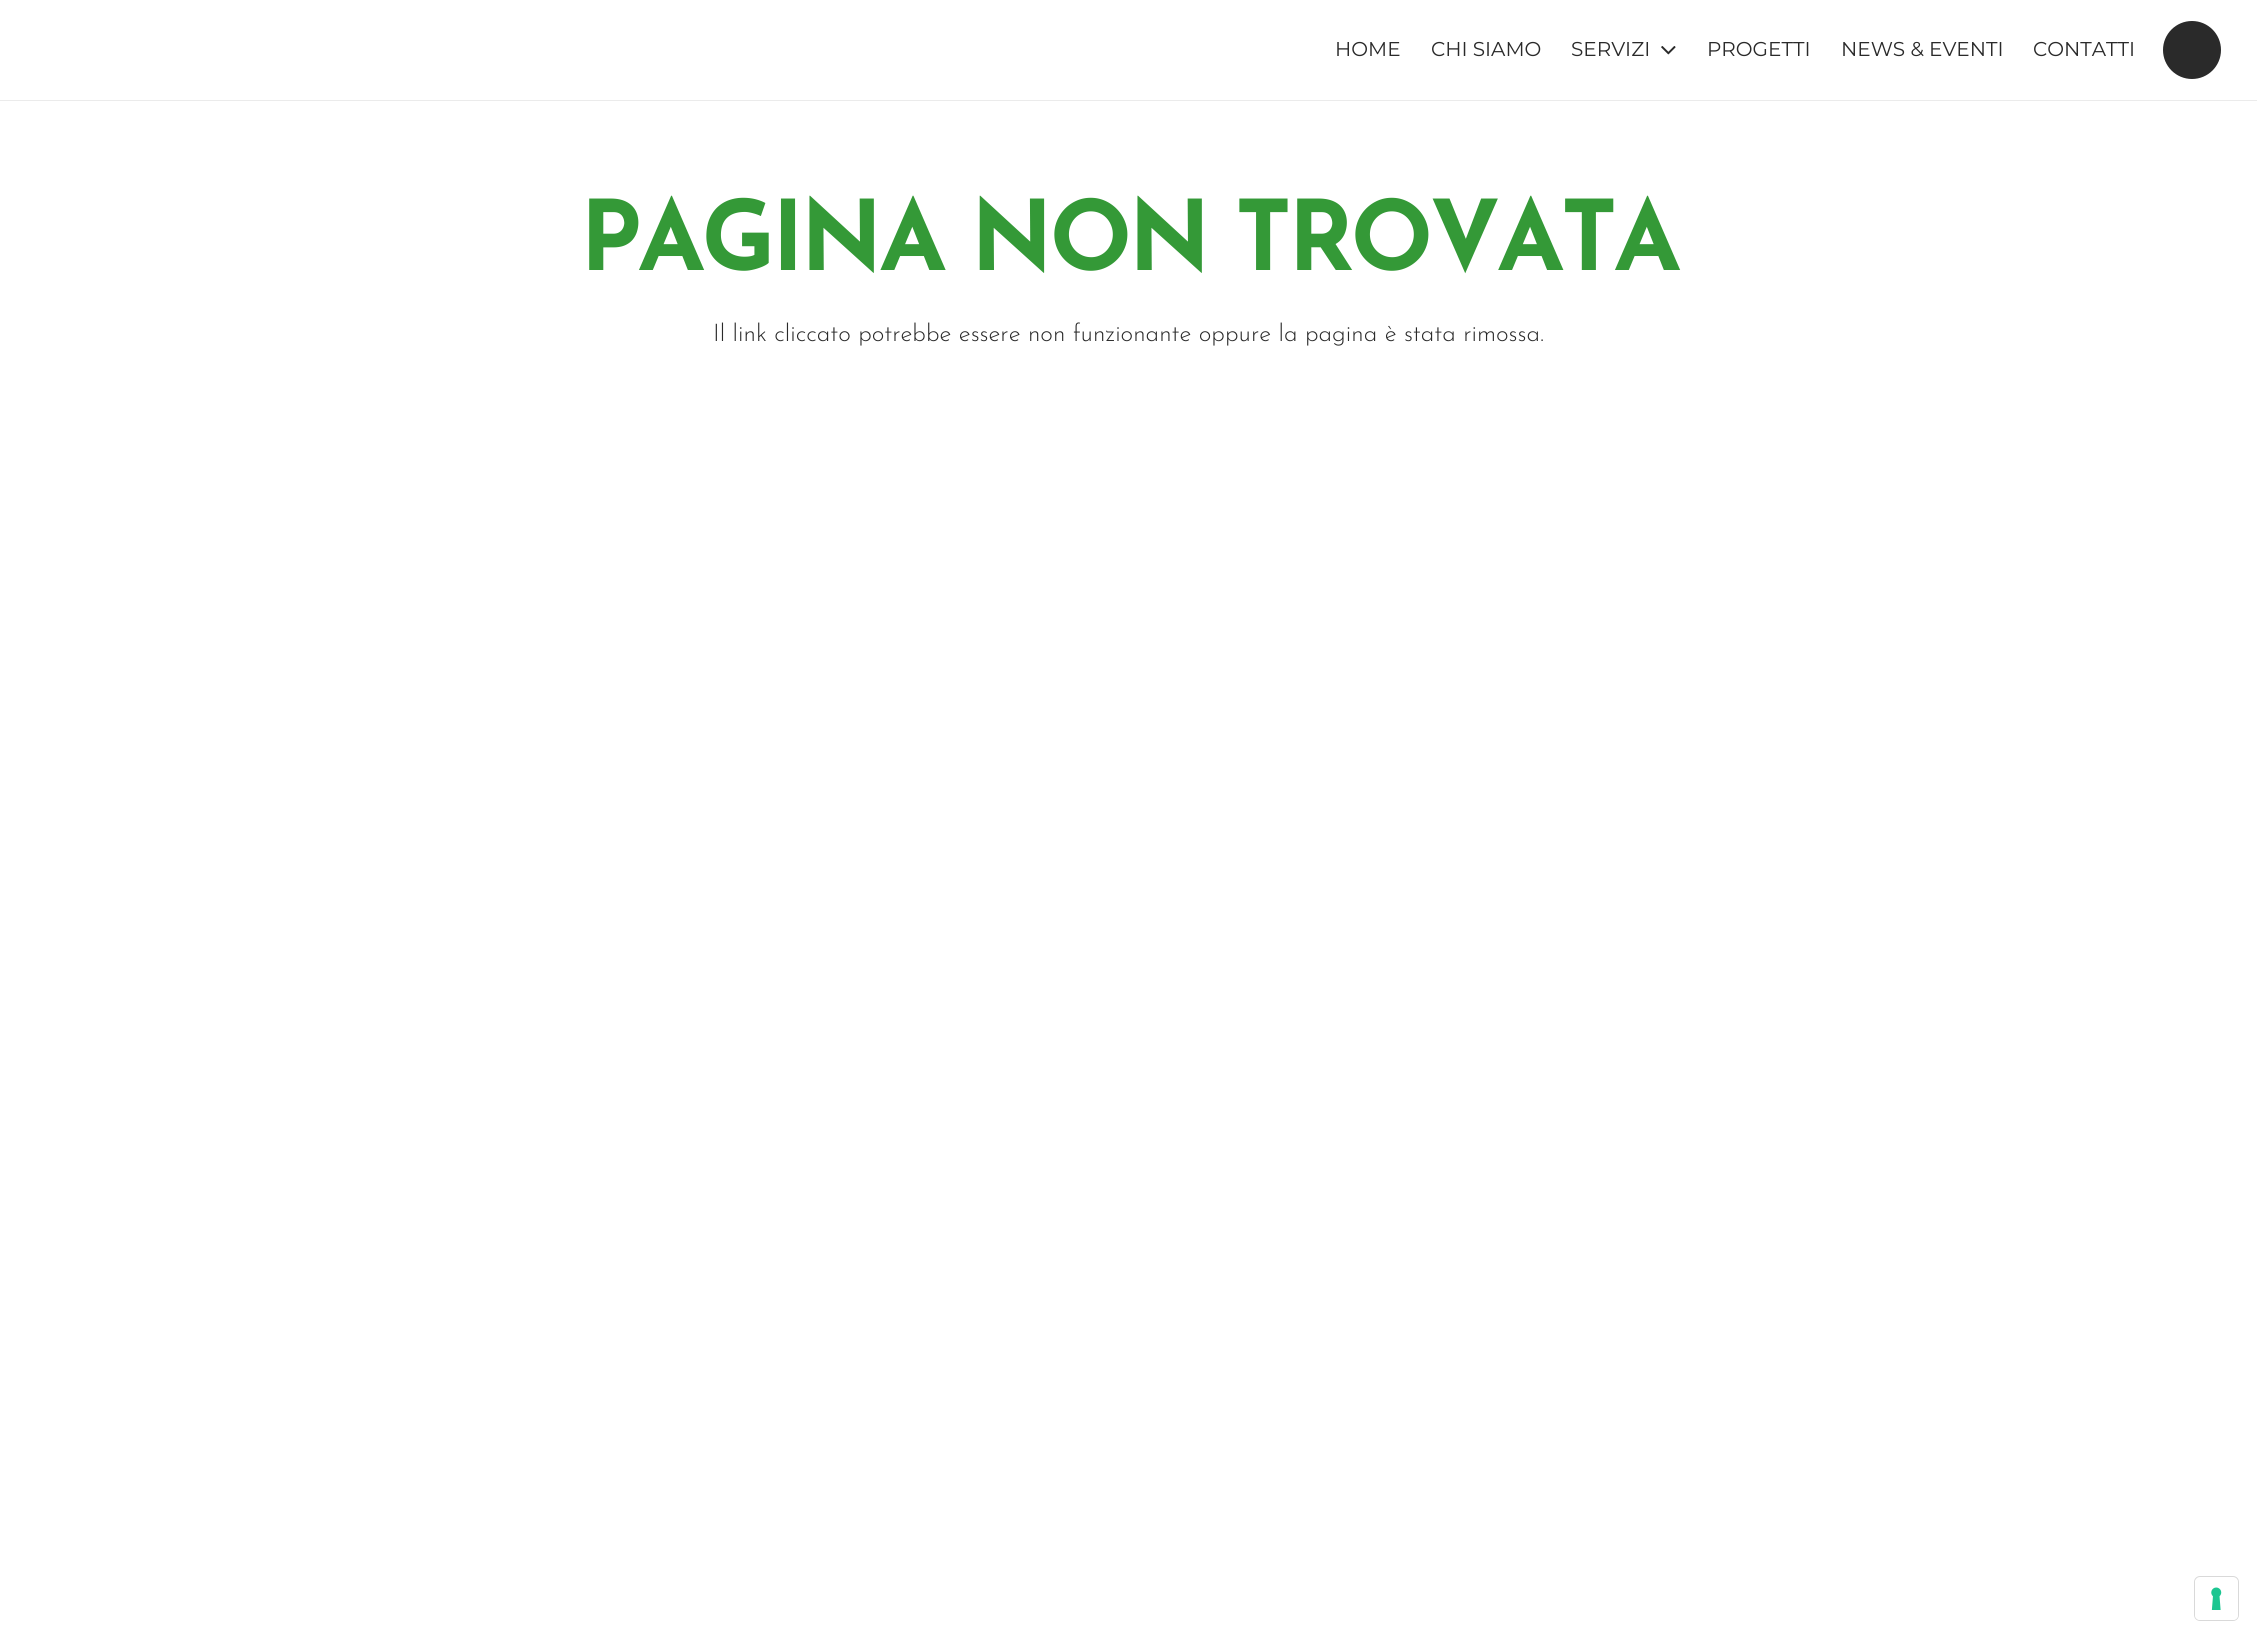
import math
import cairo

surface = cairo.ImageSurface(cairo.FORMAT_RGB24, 2257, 1640)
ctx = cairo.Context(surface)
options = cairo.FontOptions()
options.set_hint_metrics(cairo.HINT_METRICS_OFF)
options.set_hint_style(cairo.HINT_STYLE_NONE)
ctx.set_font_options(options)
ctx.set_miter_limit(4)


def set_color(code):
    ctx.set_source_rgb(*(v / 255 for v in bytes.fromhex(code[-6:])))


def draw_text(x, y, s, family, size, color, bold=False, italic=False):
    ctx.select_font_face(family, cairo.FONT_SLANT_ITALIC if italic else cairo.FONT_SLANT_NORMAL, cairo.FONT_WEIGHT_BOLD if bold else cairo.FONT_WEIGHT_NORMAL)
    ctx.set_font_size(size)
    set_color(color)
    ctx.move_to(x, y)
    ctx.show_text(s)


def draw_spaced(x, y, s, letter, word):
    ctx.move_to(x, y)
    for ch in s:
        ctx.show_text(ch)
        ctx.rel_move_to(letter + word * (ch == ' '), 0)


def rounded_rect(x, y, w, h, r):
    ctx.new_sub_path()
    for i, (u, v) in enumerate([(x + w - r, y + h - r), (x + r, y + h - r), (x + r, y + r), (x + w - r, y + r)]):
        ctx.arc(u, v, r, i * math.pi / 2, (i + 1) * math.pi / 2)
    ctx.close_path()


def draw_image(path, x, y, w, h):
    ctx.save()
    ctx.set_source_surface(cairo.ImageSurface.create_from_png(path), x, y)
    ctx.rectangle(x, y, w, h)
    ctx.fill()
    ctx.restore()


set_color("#ffffff")
ctx.paint()
set_color("#ebebeb")
ctx.new_path()
ctx.move_to(0, 100)
ctx.line_to(0, 101)
ctx.line_to(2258, 101)
ctx.line_to(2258, 1)
ctx.line_to(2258, 100)
ctx.close_path()
ctx.fill()
draw_text(1335, 56, "HOME", "Montserrat", 20, "#2a2a2a")
draw_text(1431, 56, "CHI SIAMO", "Montserrat", 20, "#2a2a2a")
draw_text(1571, 56, "SERVIZI", "Montserrat", 20, "#2a2a2a")
draw_image("assets/img1.png", 1661, 46, 15, 9)
draw_text(1707, 56, "PROGETTI", "Montserrat", 20, "#2a2a2a")
draw_text(1841, 56, "NEWS & EVENTI", "Montserrat", 20, "#2a2a2a")
draw_text(2033, 56, "CONTATTI", "Montserrat", 20, "#2a2a2a")
ctx.new_path()
ctx.arc(2192, 50, 29, 0, 2 * math.pi)
ctx.fill()
ctx.select_font_face("Josefin Sans", cairo.FONT_SLANT_NORMAL, cairo.FONT_WEIGHT_BOLD)
ctx.set_font_size(97.1)
set_color("#349937")
draw_spaced(580, 270, "PAGINA NON TROVATA", -3.9, 0)
draw_text(713, 341, "Il link cliccato potrebbe essere non funzionante oppure la pagina è stata rimossa.", "Josefin Sans Light", 24.25, "#2a2a2a")
rounded_rect(2194.5, 1576.5, 44, 44, 5.5)
set_color("#d9d9d9")
ctx.set_line_width(1)
ctx.stroke()
set_color("#ffffff")
rounded_rect(2195, 1578, 43, 42, 5)
ctx.fill()
draw_image("assets/img2.png", 2211, 1587, 11, 23)
surface.write_to_png("output.png")
